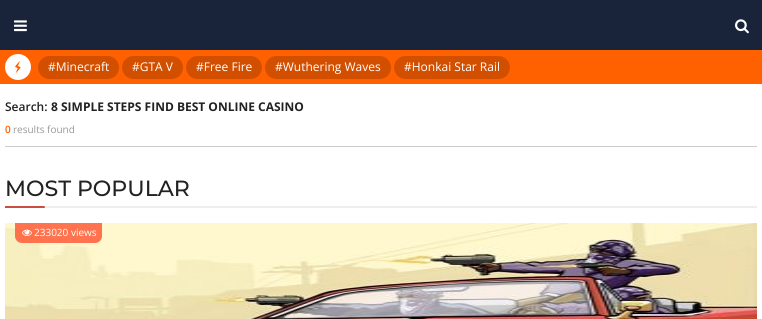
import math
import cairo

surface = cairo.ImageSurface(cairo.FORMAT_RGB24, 762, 319)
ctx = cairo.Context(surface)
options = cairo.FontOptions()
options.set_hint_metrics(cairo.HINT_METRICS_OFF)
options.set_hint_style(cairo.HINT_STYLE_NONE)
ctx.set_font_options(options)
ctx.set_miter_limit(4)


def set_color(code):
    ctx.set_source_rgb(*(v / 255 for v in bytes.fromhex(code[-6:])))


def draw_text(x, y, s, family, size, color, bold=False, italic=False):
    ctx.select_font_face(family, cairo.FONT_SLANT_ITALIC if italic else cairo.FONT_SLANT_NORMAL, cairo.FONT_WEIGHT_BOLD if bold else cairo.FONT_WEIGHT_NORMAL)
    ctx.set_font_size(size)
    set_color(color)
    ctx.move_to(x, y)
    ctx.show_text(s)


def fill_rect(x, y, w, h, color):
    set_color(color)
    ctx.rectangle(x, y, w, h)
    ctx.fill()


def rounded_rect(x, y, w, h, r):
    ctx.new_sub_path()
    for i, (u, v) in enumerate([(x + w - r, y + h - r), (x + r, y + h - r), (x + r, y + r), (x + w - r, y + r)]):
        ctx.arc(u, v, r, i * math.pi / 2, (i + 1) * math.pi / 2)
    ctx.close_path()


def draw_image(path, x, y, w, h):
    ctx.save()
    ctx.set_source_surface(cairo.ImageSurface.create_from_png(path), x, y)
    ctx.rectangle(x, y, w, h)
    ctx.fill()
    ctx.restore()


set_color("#ffffff")
ctx.paint()
fill_rect(0, 0, 762, 50, "#19233a")
draw_image("assets/img1.png", 14, 20, 13, 12)
draw_image("assets/img2.png", 735, 19, 14, 15)
fill_rect(0, 50, 762, 34, "#ff6000")
set_color("#ffffff")
ctx.arc(18, 67, 13, 0, 2 * math.pi)
ctx.fill()
draw_image("assets/img3.png", 15, 61, 6, 13)
set_color("#d34f00")
rounded_rect(38, 56, 81, 23, 11.5)
ctx.fill()
draw_text(48, 71, "#Minecraft", "Open Sans", 12, "#ffffff")
set_color("#d34f00")
rounded_rect(122, 56, 61, 23, 11.5)
ctx.fill()
draw_text(132, 71, "#GTA V", "Open Sans", 12, "#ffffff")
set_color("#d34f00")
rounded_rect(186, 56, 76, 23, 11.5)
ctx.fill()
draw_text(196, 71, "#Free Fire", "Open Sans", 12, "#ffffff")
set_color("#d34f00")
rounded_rect(265, 56, 126, 23, 11.5)
ctx.fill()
draw_text(275, 71, "#Wuthering Waves", "Open Sans", 12, "#ffffff")
set_color("#d34f00")
rounded_rect(394, 56, 116, 23, 11.5)
ctx.fill()
draw_text(404, 71, "#Honkai Star Rail", "Open Sans", 12, "#ffffff")
fill_rect(5, 146, 752, 1, "#cccccc")
draw_text(5, 111, "Search:", "Open Sans SemiBold", 12, "#222222")
draw_text(51, 111, "8 SIMPLE STEPS FIND BEST ONLINE CASINO", "Open Sans", 12, "#222222", bold=True)
draw_text(5, 133, "0", "Open Sans SemiBold", 10, "#ff6000")
draw_text(13, 133, "results found", "Open Sans", 10, "#999999")
draw_text(5, 196, "MOST POPULAR", "Montserrat Medium", 22, "#222222")
fill_rect(44, 206, 713, 2, "#eeeeee")
set_color("#cb4d42")
ctx.new_path()
ctx.move_to(5, 206)
ctx.line_to(44, 206)
ctx.curve_to(44.5, 206, 45, 206.5, 45, 207)
ctx.curve_to(45, 207.5, 44.5, 208, 44, 208)
ctx.line_to(5, 208)
ctx.close_path()
ctx.fill()
draw_image("assets/img4.png", 5, 223, 752, 96)
ctx.set_source_rgba(1, 0.318, 0.184, 0.8)
ctx.new_path()
ctx.move_to(15, 223)
ctx.line_to(102, 223)
ctx.line_to(102, 236)
ctx.curve_to(102, 240, 99, 243, 95, 243)
ctx.line_to(22, 243)
ctx.curve_to(18, 243, 15, 240, 15, 236)
ctx.close_path()
ctx.fill()
draw_image("assets/img5.png", 22, 229, 10, 7)
draw_text(34, 236, "233020 views", "Open Sans", 10, "#ffffff")
surface.write_to_png("output.png")
